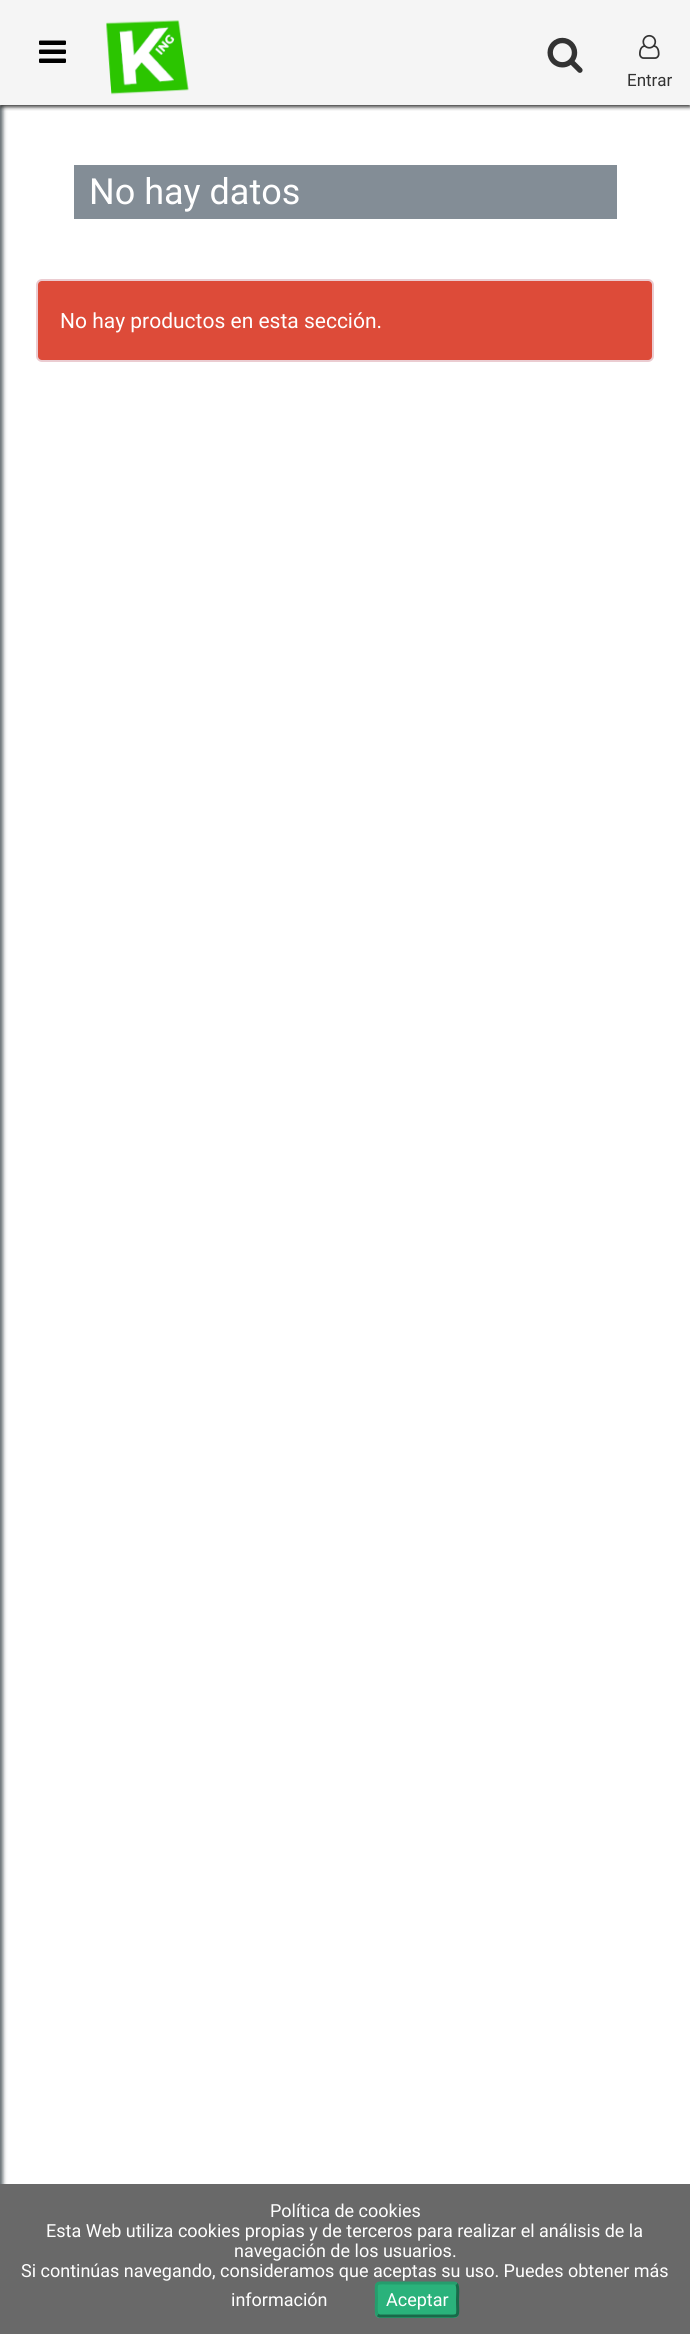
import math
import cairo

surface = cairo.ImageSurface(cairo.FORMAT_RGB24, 690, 2334)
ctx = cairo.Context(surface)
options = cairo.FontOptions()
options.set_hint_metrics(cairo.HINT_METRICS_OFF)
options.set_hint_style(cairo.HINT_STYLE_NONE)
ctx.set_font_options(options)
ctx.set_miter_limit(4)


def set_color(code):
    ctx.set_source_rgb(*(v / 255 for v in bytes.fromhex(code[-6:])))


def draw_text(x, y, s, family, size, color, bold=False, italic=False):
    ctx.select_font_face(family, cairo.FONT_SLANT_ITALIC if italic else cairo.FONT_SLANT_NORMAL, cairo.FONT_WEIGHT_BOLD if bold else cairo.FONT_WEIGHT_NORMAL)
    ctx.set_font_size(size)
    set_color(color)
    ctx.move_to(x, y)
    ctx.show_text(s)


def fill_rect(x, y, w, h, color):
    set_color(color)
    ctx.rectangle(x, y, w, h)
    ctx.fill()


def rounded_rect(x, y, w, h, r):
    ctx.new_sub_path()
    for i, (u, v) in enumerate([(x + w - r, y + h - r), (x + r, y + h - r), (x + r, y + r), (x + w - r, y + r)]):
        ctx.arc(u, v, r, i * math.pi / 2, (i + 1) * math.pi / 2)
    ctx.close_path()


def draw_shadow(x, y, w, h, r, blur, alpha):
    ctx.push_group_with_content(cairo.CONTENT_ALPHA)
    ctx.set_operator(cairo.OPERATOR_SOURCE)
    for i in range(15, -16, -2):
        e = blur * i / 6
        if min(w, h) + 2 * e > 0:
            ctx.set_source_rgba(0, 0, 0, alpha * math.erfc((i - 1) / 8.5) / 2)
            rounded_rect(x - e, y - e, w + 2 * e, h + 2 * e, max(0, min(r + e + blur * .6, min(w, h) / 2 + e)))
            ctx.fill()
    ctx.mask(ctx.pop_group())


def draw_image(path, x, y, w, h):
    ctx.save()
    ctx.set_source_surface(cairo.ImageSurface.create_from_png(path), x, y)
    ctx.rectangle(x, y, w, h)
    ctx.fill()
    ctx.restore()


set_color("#ffffff")
ctx.paint()
set_color("#636b6f")
draw_shadow(-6, 105, 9, 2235, 0, 2, 1)
fill_rect(0, 0, 690, 105, "#f5f5f5")
ctx.save()
ctx.rectangle(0, 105, 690, 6)
ctx.clip()
set_color("#333333")
draw_shadow(0, 2, 690, 105, 0, 2, 1)
ctx.restore()
draw_image("assets/img1.png", 39, 40, 27, 23)
draw_image("assets/img2.png", 106, 20, 83, 75)
draw_image("assets/img3.png", 547, 37, 36, 36)
draw_image("assets/img4.png", 639, 34, 21, 25)
draw_text(627, 86, "Entrar", "Roboto", 17, "#333333")
fill_rect(74, 165, 543, 54, "#838d96")
draw_text(89, 204, "No hay datos", "Roboto", 36, "#ffffff")
set_color("#dd4b39")
rounded_rect(37, 280, 616, 81, 5)
ctx.fill_preserve()
set_color("#ebccd1")
ctx.stroke()
draw_text(60, 328, "No hay productos en esta sección.", "Roboto", 21, "#ffffff")
fill_rect(0, 2184, 690, 150, "#696969")
draw_text(270, 2217, "Política de cookies", "Roboto", 18, "#ffffff")
draw_text(46, 2237, "Esta Web utiliza cookies propias y de terceros para realizar el análisis de la", "Roboto", 18, "#ffffff")
draw_text(234, 2257, "navegación de los usuarios.", "Roboto", 18, "#ffffff")
draw_text(21, 2277, "Si continúas navegando, consideramos que aceptas su uso. Puedes obtener más", "Roboto", 18, "#ffffff")
draw_text(231, 2306, "información", "Roboto", 18, "#ffffff")
set_color("#2ab27b")
rounded_rect(375, 2282, 84, 36, 5)
ctx.fill()
ctx.new_path()
ctx.move_to(456.5, 2284)
ctx.curve_to(458.5, 2286, 457.5, 2296.5, 457.5, 2299.5)
ctx.curve_to(457.5, 2318.5, 461, 2316, 442, 2316)
ctx.line_to(379.5, 2316)
ctx.line_to(377.5, 2315)
set_color("#196949")
ctx.set_line_width(3)
ctx.stroke()
ctx.new_path()
ctx.move_to(377.5, 2315)
ctx.curve_to(375.5, 2313, 376.5, 2302.5, 376.5, 2299.5)
ctx.curve_to(376.5, 2280.5, 373, 2283, 392, 2283)
ctx.line_to(454.5, 2283)
ctx.line_to(456.5, 2284)
set_color("#259d6d")
ctx.stroke()
draw_text(386, 2306, "Aceptar", "Roboto", 18, "#ffffff")
surface.write_to_png("output.png")
